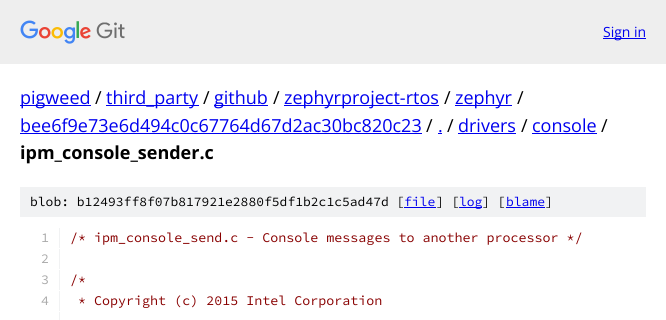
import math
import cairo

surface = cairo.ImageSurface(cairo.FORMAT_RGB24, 666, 320)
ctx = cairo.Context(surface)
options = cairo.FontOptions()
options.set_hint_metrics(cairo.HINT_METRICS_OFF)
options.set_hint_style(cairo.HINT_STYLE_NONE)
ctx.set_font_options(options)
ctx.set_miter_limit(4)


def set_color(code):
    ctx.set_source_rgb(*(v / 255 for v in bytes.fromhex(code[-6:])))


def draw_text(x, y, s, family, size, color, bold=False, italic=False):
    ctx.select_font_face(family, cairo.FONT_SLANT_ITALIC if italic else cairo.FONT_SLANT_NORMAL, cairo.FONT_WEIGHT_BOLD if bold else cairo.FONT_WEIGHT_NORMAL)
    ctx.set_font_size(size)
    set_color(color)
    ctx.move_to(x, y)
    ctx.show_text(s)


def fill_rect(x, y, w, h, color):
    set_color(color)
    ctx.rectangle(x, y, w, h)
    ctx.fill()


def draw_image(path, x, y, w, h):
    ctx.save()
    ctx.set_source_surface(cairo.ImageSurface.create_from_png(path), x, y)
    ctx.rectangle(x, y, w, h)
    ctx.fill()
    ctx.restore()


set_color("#ffffff")
ctx.paint()
fill_rect(0, 0, 666, 64, "#eeeeee")
draw_image("assets/img1.png", 20, 20, 105, 24)
fill_rect(603, 38, 43, 1, "#0000ee")
draw_text(603, 37, "Sign in", "Open Sans", 14, "#0000ee")
fill_rect(20, 105, 71, 1, "#0000ee")
draw_text(20, 104, "pigweed", "Open Sans", 18, "#0000ee")
draw_text(95, 104, "/", "Open Sans", 18, "#000000")
fill_rect(106, 105, 93, 1, "#0000ee")
draw_text(106, 104, "third_party", "Open Sans", 18, "#0000ee")
draw_text(203, 104, "/", "Open Sans", 18, "#000000")
fill_rect(214, 105, 54, 1, "#0000ee")
draw_text(214, 104, "github", "Open Sans", 18, "#0000ee")
draw_text(273, 104, "/", "Open Sans", 18, "#000000")
fill_rect(284, 105, 155, 1, "#0000ee")
draw_text(284, 104, "zephyrproject-rtos", "Open Sans", 18, "#0000ee")
draw_text(444, 104, "/", "Open Sans", 18, "#000000")
fill_rect(455, 105, 57, 1, "#0000ee")
draw_text(455, 104, "zephyr", "Open Sans", 18, "#0000ee")
draw_text(517, 104, "/", "Open Sans", 18, "#000000")
draw_text(20, 132, "bee6f9e73e6d494c0c67764d67d2ac30bc820c23", "Open Sans", 18, "#0000ee")
fill_rect(20, 133, 402, 1, "#0000ee")
draw_text(426, 132, "/", "Open Sans", 18, "#000000")
draw_text(438, 132, ".", "Open Sans", 18, "#0000ee")
fill_rect(438, 133, 4, 1, "#0000ee")
draw_text(447, 132, "/", "Open Sans", 18, "#000000")
draw_text(458, 132, "drivers", "Open Sans", 18, "#0000ee")
fill_rect(458, 133, 58, 1, "#0000ee")
draw_text(521, 132, "/", "Open Sans", 18, "#000000")
draw_text(532, 132, "console", "Open Sans", 18, "#0000ee")
fill_rect(532, 133, 65, 1, "#0000ee")
draw_text(601, 132, "/", "Open Sans", 18, "#000000")
draw_text(20, 159, "ipm_console_sender.c", "Open Sans", 18, "#000000", bold=True)
fill_rect(20, 187, 626, 30, "#f1f2f3")
draw_text(30, 206, "blob: b12493ff8f07b817921e2880f5df1b2c1c5ad47d [", "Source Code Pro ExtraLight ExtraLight", 13, "#000000")
draw_text(404, 206, "file", "Source Code Pro ExtraLight ExtraLight", 13, "#0000ee")
fill_rect(404, 207, 32, 1, "#0000ee")
draw_text(436, 206, "] [", "Source Code Pro ExtraLight ExtraLight", 13, "#000000")
fill_rect(459, 207, 23, 1, "#0000ee")
draw_text(459, 206, "log", "Source Code Pro ExtraLight ExtraLight", 13, "#0000ee")
draw_text(482, 206, "] [", "Source Code Pro ExtraLight ExtraLight", 13, "#000000")
draw_text(506, 206, "blame", "Source Code Pro ExtraLight ExtraLight", 13, "#0000ee")
fill_rect(506, 207, 39, 1, "#0000ee")
draw_text(545, 206, "]", "Source Code Pro ExtraLight ExtraLight", 13, "#000000")
fill_rect(59, 228, 1, 20, "#f1f2f3")
draw_text(41, 242, "1", "Source Code Pro ExtraLight ExtraLight", 13.35, "#aaaaaa")
draw_text(70, 242, "/* ipm_console_send.c - Console messages to another processor */", "Source Code Pro ExtraLight ExtraLight", 13.35, "#880000")
fill_rect(59, 249, 1, 20, "#f1f2f3")
draw_text(41, 263, "2", "Source Code Pro ExtraLight ExtraLight", 13.35, "#aaaaaa")
fill_rect(59, 270, 1, 20, "#f1f2f3")
draw_text(41, 284, "3", "Source Code Pro ExtraLight ExtraLight", 13.35, "#aaaaaa")
draw_text(70, 284, "/*", "Source Code Pro ExtraLight ExtraLight", 13.35, "#880000")
fill_rect(59, 291, 1, 20, "#f1f2f3")
draw_text(41, 305, "4", "Source Code Pro ExtraLight ExtraLight", 13.35, "#aaaaaa")
draw_text(78, 305, "* Copyright (c) 2015 Intel Corporation", "Source Code Pro ExtraLight ExtraLight", 13.35, "#880000")
fill_rect(59, 312, 1, 8, "#f1f2f3")
surface.write_to_png("output.png")
